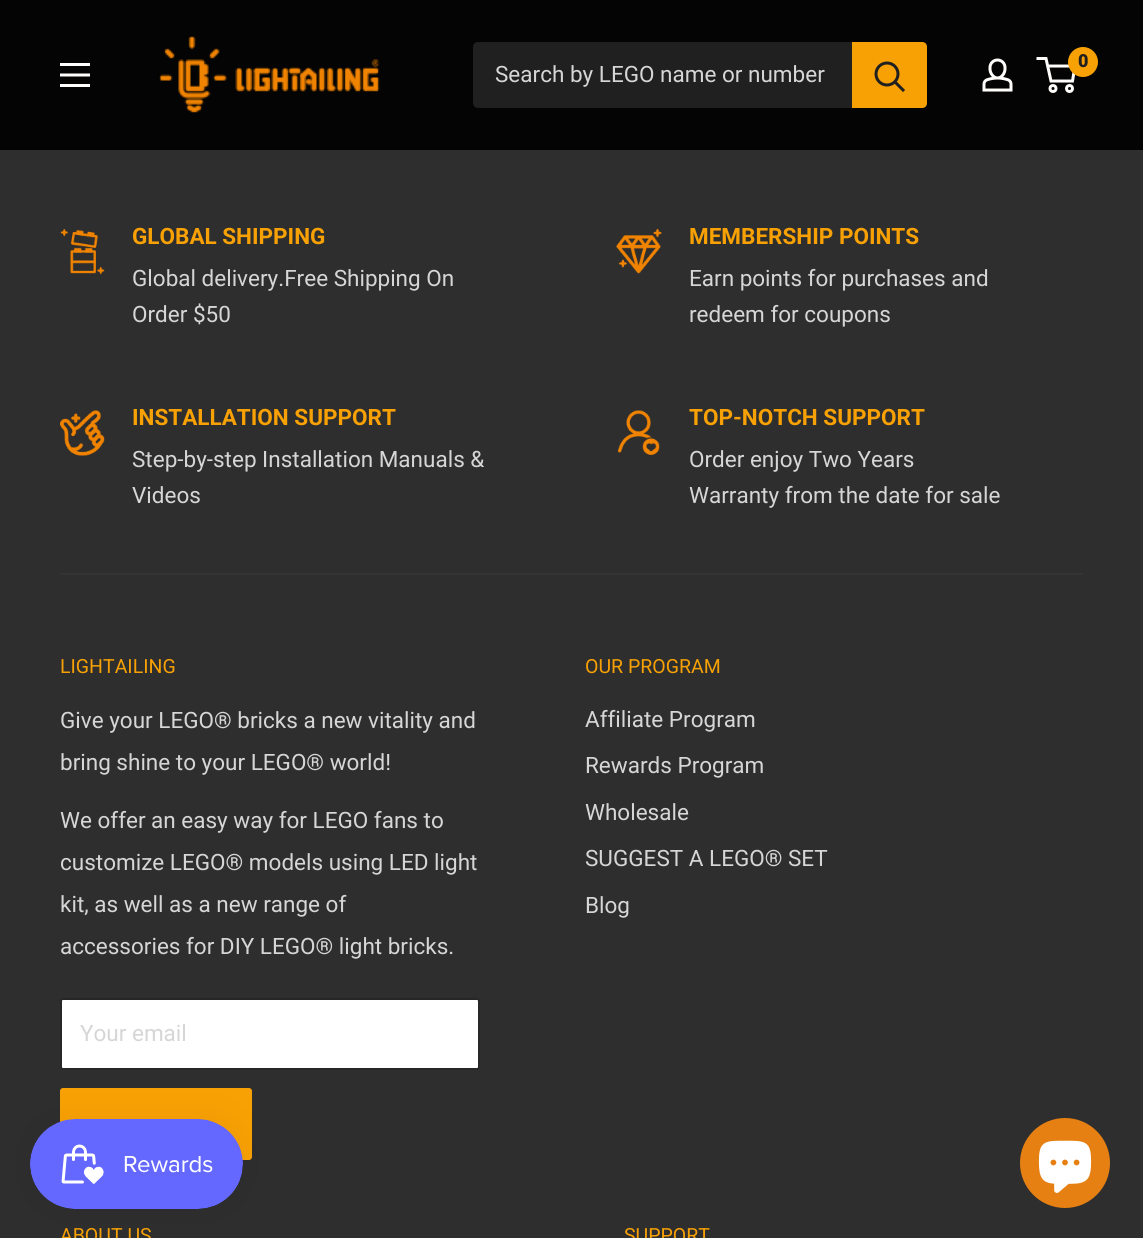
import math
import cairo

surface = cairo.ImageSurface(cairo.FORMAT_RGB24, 1143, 1238)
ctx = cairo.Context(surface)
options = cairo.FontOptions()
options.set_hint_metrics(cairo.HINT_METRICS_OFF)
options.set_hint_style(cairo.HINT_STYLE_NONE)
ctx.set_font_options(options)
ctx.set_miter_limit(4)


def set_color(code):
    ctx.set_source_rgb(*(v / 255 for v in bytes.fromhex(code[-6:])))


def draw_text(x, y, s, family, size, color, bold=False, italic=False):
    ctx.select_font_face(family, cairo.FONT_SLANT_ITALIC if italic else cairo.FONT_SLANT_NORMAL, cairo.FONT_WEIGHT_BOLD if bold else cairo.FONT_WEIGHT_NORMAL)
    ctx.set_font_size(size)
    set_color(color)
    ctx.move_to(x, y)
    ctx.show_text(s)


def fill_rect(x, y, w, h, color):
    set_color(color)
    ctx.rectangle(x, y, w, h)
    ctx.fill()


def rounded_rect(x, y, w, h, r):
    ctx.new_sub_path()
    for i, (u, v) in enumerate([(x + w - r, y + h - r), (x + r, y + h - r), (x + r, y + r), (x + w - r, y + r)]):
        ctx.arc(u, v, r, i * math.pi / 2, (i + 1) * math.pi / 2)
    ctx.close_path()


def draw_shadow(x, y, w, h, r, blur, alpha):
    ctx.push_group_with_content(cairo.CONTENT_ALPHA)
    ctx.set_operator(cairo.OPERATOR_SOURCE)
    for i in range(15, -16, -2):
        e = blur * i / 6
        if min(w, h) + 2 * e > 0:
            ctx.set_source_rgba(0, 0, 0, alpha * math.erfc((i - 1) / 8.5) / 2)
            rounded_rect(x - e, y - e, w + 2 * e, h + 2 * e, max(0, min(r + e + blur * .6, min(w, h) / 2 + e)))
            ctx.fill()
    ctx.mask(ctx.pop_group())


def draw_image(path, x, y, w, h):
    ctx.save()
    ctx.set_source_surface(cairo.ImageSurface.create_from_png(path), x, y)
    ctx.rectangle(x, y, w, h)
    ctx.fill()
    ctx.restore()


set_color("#2e2e2e")
ctx.paint()
fill_rect(0, 0, 1143, 150, "#040404")
draw_image("assets/img1.png", 159, 36, 221, 77)
draw_image("assets/img2.png", 982, 58, 31, 34)
ctx.arc(1053, 88.5, 3, 0, 2 * math.pi)
set_color("#fffefc")
ctx.set_line_width(3)
ctx.stroke()
ctx.arc(1069.5, 88.5, 3, 0, 2 * math.pi)
ctx.stroke()
ctx.new_path()
ctx.move_to(1047.5, 66)
ctx.line_to(1075, 66)
ctx.line_to(1072.5, 81)
ctx.line_to(1051, 81)
ctx.line_to(1046, 58.5)
ctx.line_to(1036.5, 58.5)
ctx.stroke()
set_color("#f8a104")
ctx.arc(1083, 62, 15, 0, 2 * math.pi)
ctx.fill()
draw_text(1078, 67, "0", "Roboto Black", 18, "#202020")
draw_image("assets/img3.png", 60, 63, 30, 24)
rounded_rect(473, 42, 454, 66, 5)
ctx.fill()
draw_text(495, 82, "Search by LEGO name or number", "Roboto", 22.5, "#d6d6d6")
set_color("#f8a104")
ctx.new_path()
ctx.move_to(852, 42)
ctx.line_to(922, 42)
ctx.curve_to(925, 42, 927, 44, 927, 47)
ctx.line_to(927, 103)
ctx.curve_to(927, 106, 925, 108, 922, 108)
ctx.line_to(852, 108)
ctx.close_path()
ctx.fill()
ctx.new_path()
ctx.move_to(903, 90)
ctx.line_to(895.5, 82.5)
set_color("#202020")
ctx.set_line_cap(cairo.LINE_CAP_SQUARE)
ctx.stroke()
ctx.arc(887, 74, 11, 0, 2 * math.pi)
ctx.set_line_cap(cairo.LINE_CAP_BUTT)
ctx.stroke()
draw_image("assets/img4.png", 60, 229, 45, 45)
draw_text(132, 244, "GLOBAL SHIPPING", "Roboto", 22.5, "#f8a104", bold=True)
draw_text(132, 286, "Global delivery.Free Shipping On", "Roboto", 22.5, "#d6d6d6")
draw_text(132, 322, "Order $50", "Roboto", 22.5, "#d6d6d6")
draw_image("assets/img5.png", 616, 229, 46, 45)
draw_text(689, 244, "MEMBERSHIP POINTS", "Roboto", 22.5, "#f8a104", bold=True)
draw_text(689, 286, "Earn points for purchases and", "Roboto", 22.5, "#d6d6d6")
draw_text(689, 322, "redeem for coupons", "Roboto", 22.5, "#d6d6d6")
draw_image("assets/img6.png", 60, 410, 45, 46)
draw_text(132, 425, "INSTALLATION SUPPORT", "Roboto", 22.5, "#f8a104", bold=True)
draw_text(132, 467, "Step-by-step Installation Manuals &", "Roboto", 22.5, "#d6d6d6")
draw_text(132, 503, "Videos", "Roboto", 22.5, "#d6d6d6")
draw_image("assets/img7.png", 618, 410, 42, 45)
draw_text(689, 425, "TOP-NOTCH SUPPORT", "Roboto", 22.5, "#f8a104", bold=True)
draw_text(689, 467, "Order enjoy Two Years", "Roboto", 22.5, "#d6d6d6")
draw_text(689, 503, "Warranty from the date for sale", "Roboto", 22.5, "#d6d6d6")
fill_rect(60, 573, 1023, 2, "#333434")
draw_text(60, 673, "LIGHTAILING", "Roboto", 19.5, "#f8a104")
draw_text(60, 728, "Give your LEGO® bricks a new vitality and", "Roboto", 22.5, "#d6d6d6")
draw_text(60, 770, "bring shine to your LEGO® world!", "Roboto", 22.5, "#d6d6d6")
draw_text(60, 828, "We offer an easy way for LEGO fans to", "Roboto", 22.5, "#d6d6d6")
draw_text(60, 870, "customize LEGO® models using LED light", "Roboto", 22.5, "#d6d6d6")
draw_text(60, 912, "kit, as well as a new range of", "Roboto", 22.5, "#d6d6d6")
draw_text(60, 954, "accessories for DIY LEGO® light bricks.", "Roboto", 22.5, "#d6d6d6")
set_color("#ffffff")
rounded_rect(61, 999, 418, 70, 2)
ctx.fill_preserve()
set_color("#262727")
ctx.set_line_width(2)
ctx.stroke()
draw_text(80, 1041, "Your email", "Roboto", 22.5, "#d6d6d6")
set_color("#f8a104")
rounded_rect(60, 1088, 192, 72, 3)
ctx.fill()
draw_text(585, 673, "OUR PROGRAM", "Roboto", 19.5, "#f8a104")
draw_text(585, 727, "Affiliate Program", "Roboto", 22.5, "#d6d6d6")
draw_text(585, 773, "Rewards Program", "Roboto", 22.5, "#d6d6d6")
draw_text(585, 820, "Wholesale", "Roboto", 22.5, "#d6d6d6")
draw_text(585, 866, "SUGGEST A LEGO® SET", "Roboto", 22.5, "#d6d6d6")
draw_text(585, 913, "Blog", "Roboto", 22.5, "#d6d6d6")
draw_text(60, 1242, "ABOUT US", "Roboto", 19.5, "#f8a104")
draw_text(624, 1242, "SUPPORT", "Roboto", 19.5, "#f8a104")
set_color("#000000")
draw_shadow(30, 1119, 213, 90, 45, 19, 0.05)
draw_image("assets/img8.png", 30, 1119, 213, 90)
set_color("#e68012")
ctx.arc(1065, 1163, 45, 0, 2 * math.pi)
ctx.fill()
draw_image("assets/img9.png", 1038, 1140, 54, 53)
surface.write_to_png("output.png")
